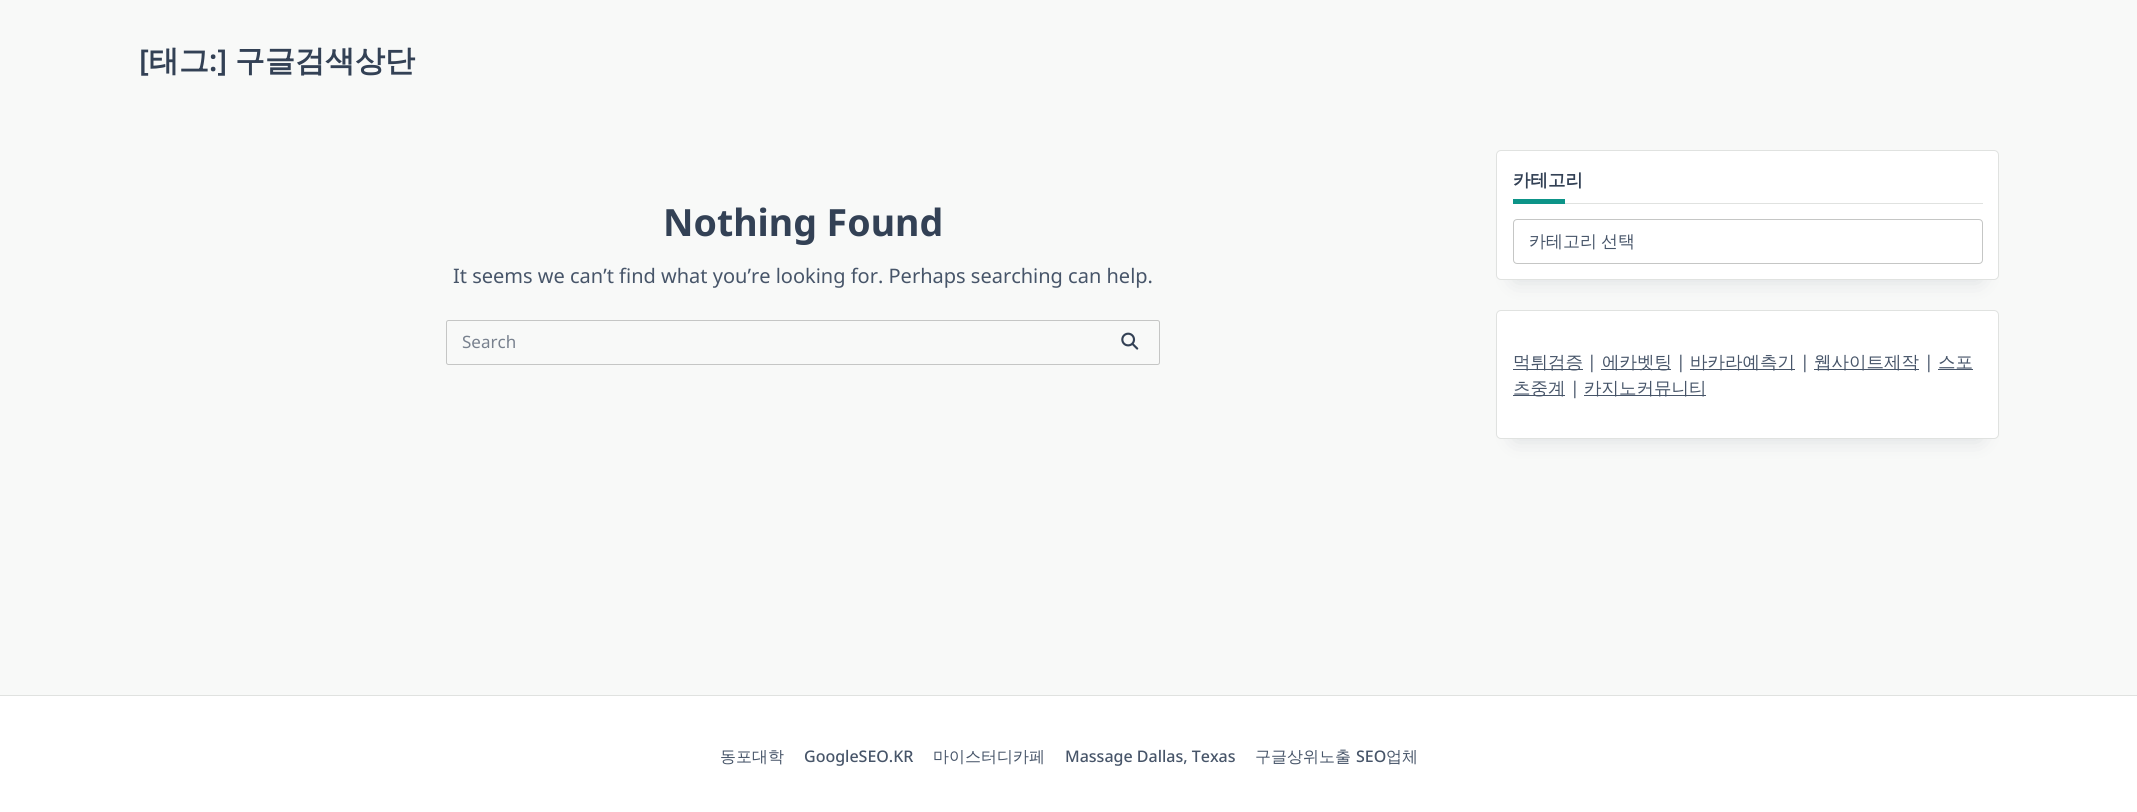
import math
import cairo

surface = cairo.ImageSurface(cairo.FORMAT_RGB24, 2137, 812)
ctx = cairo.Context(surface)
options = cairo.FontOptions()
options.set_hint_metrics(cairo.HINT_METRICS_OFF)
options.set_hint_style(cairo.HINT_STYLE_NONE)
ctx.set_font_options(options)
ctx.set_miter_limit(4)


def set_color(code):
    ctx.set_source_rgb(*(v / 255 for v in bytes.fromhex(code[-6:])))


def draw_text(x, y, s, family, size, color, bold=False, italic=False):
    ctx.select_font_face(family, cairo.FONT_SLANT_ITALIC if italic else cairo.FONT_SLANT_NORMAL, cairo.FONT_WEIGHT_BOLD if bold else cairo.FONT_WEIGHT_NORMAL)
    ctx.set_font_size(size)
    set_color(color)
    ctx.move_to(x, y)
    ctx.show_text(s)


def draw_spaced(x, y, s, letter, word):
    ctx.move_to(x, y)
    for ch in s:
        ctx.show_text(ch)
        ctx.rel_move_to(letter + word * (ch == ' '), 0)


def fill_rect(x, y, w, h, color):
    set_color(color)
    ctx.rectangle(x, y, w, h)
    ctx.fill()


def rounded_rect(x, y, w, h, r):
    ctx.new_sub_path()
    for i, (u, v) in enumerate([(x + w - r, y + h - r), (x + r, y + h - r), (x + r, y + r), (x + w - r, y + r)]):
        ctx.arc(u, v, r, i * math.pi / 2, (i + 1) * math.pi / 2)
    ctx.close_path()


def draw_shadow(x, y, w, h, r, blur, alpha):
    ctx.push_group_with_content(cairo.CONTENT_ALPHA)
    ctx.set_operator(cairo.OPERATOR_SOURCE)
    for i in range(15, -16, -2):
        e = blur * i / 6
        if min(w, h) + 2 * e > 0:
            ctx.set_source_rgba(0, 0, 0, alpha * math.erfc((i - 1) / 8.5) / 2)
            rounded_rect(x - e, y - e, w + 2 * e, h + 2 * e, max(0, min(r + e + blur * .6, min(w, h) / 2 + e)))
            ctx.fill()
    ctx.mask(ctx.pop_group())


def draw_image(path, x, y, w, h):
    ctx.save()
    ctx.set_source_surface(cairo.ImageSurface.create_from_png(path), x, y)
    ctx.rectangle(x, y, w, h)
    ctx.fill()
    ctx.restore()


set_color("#f8f9f8")
ctx.paint()
draw_text(139, 71, "[", "Noto Sans SemiBold", 30, "#334155")
draw_text(149, 71, "태그", "WenQuanYi Zen Hei", 30, "#334155", bold=True)
draw_text(209, 71, ":]", "Noto Sans SemiBold", 30, "#334155")
draw_text(235, 71, "구글검색상단", "WenQuanYi Zen Hei", 30, "#334155", bold=True)
draw_text(663, 236, "Nothing Found", "Noto Sans", 37.5, "#334155", bold=True)
draw_text(453, 283, "It seems we can’t find what you’re looking for. Perhaps searching can help.", "Noto Sans", 20, "#475569")
rounded_rect(446.5, 320.5, 713, 44, 2)
set_color("#c5c6c5")
ctx.set_line_width(1)
ctx.stroke()
draw_text(462, 348, "Search", "Noto Sans", 17, "#78818e")
draw_image("assets/img1.png", 1121, 332, 18, 18)
set_color("#2c3e50")
draw_shadow(1515, 188, 465, 92, 0, 11, 0.15)
set_color("#ffffff")
rounded_rect(1496.5, 150.5, 502, 129, 4.5)
ctx.fill_preserve()
set_color("#e0e2e0")
ctx.stroke()
fill_rect(1565, 203, 418, 1, "#e0e2e0")
draw_text(1513, 186, "카테고리", "WenQuanYi Zen Hei", 17.5, "#334155", bold=True)
fill_rect(1513, 199, 52, 5, "#0d9488")
rounded_rect(1513.5, 219.5, 469, 44, 3.5)
set_color("#c5c6c5")
ctx.stroke()
ctx.select_font_face("WenQuanYi Zen Hei Medium")
ctx.set_font_size(17)
set_color("#475569")
draw_spaced(1529, 247, "카테고리 선택", 0, -1)
set_color("#2c3e50")
draw_shadow(1515, 348, 465, 91, 0, 11, 0.15)
set_color("#ffffff")
rounded_rect(1496.5, 310.5, 502, 128, 4.5)
ctx.fill_preserve()
set_color("#e0e2e0")
ctx.stroke()
fill_rect(1513, 369, 70, 1, "#475569")
draw_text(1513, 368, "먹튀검증", "WenQuanYi Zen Hei Medium", 17.5, "#475569")
draw_text(1587, 368, "|", "Noto Sans", 17.5, "#475569")
fill_rect(1601, 369, 70, 1, "#475569")
draw_text(1602, 368, "에카벳팅", "WenQuanYi Zen Hei Medium", 17.5, "#475569")
draw_text(1676, 368, "|", "Noto Sans", 17.5, "#475569")
fill_rect(1690, 369, 105, 1, "#475569")
draw_text(1690, 368, "바카라예측기", "WenQuanYi Zen Hei Medium", 17.5, "#475569")
draw_text(1800, 368, "|", "Noto Sans", 17.5, "#475569")
fill_rect(1814, 369, 105, 1, "#475569")
draw_text(1814, 368, "웹사이트제작", "WenQuanYi Zen Hei Medium", 17.5, "#475569")
draw_text(1924, 368, "|", "Noto Sans", 17.5, "#475569")
draw_text(1938, 368, "스포", "WenQuanYi Zen Hei Medium", 17.5, "#475569")
fill_rect(1938, 369, 35, 1, "#475569")
fill_rect(1513, 395, 52, 1, "#475569")
draw_text(1513, 394, "츠중계", "WenQuanYi Zen Hei Medium", 17.5, "#475569")
draw_text(1570, 394, "|", "Noto Sans", 17.5, "#475569")
fill_rect(1584, 395, 122, 1, "#475569")
draw_text(1584, 394, "카지노커뮤니티", "WenQuanYi Zen Hei Medium", 17.5, "#475569")
fill_rect(0, 696, 2137, 116, "#ffffff")
fill_rect(0, 695, 2137, 1, "#e0e2e0")
draw_text(720, 762, "동포대학", "WenQuanYi Zen Hei Medium", 16, "#475569")
draw_text(804, 762, "GoogleSEO.KR", "Noto Sans Medium", 16, "#475569")
draw_text(933, 762, "마이스터디카페", "WenQuanYi Zen Hei Medium", 16, "#475569")
draw_text(1065, 762, "Massage Dallas, Texas", "Noto Sans Medium", 16, "#475569")
draw_text(1255, 762, "구글상위노출", "WenQuanYi Zen Hei Medium", 16, "#475569")
draw_text(1356, 762, "SEO", "Noto Sans Medium", 16, "#475569")
draw_text(1386, 762, "업체", "WenQuanYi Zen Hei Medium", 16, "#475569")
surface.write_to_png("output.png")
